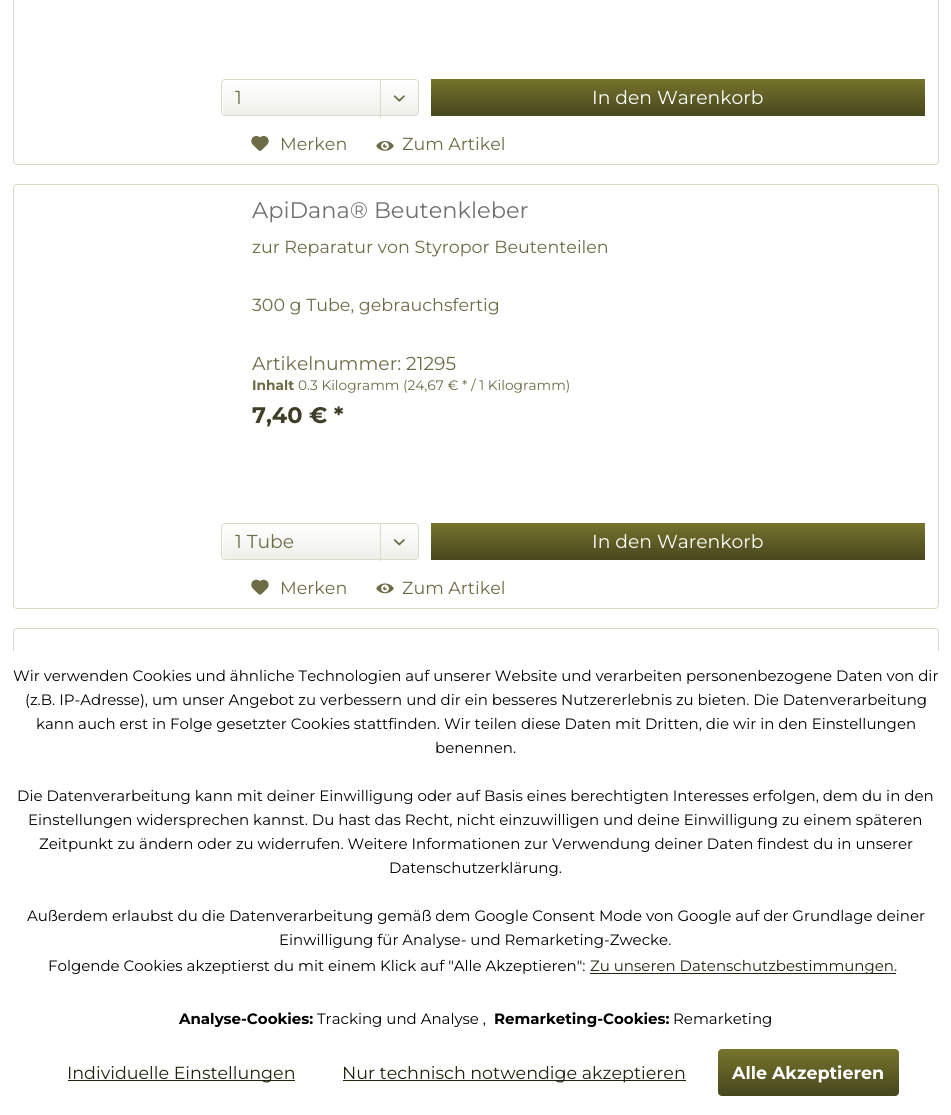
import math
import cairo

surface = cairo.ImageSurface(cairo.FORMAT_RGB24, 951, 1115)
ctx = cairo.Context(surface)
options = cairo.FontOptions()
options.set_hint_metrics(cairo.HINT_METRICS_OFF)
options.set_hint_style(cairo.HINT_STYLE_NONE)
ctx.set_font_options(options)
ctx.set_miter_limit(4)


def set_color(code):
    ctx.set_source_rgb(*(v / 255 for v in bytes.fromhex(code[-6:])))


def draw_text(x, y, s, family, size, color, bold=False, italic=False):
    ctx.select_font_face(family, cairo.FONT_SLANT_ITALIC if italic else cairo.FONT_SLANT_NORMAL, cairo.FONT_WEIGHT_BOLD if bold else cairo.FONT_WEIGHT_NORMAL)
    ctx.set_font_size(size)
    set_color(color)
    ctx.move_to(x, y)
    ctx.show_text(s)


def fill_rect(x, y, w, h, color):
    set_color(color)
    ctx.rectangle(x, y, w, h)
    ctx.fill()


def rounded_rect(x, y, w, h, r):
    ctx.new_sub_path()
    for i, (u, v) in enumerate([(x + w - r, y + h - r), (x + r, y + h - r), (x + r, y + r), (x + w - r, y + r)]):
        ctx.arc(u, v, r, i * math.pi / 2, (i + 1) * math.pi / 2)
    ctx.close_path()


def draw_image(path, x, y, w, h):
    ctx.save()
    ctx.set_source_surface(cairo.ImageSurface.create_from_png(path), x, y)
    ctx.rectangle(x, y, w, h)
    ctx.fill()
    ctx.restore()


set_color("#ffffff")
ctx.paint()
rounded_rect(13.5, -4.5, 925, 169, 3.5)
set_color("#dadacb")
ctx.set_line_width(1)
ctx.stroke()
gradient = cairo.LinearGradient(320, 80, 320, 115)
gradient.add_color_stop_rgba(0, 1, 1, 1, 1)
gradient.add_color_stop_rgba(1, 0.937, 0.937, 0.914, 1)
ctx.set_source(gradient)
rounded_rect(223, 80, 195, 35, 2.5)
ctx.fill()
rounded_rect(221.5, 79.5, 197, 36, 3.5)
set_color("#dadacb")
ctx.stroke()
draw_text(235, 104, "1", "Montserrat Thin", 18.75, "#6c6c47")
fill_rect(380, 80, 1, 38, "#dadacb")
draw_image("assets/img1.png", 393, 95, 12, 7)
gradient = cairo.LinearGradient(678, 79, 678, 116)
gradient.add_color_stop_rgba(0, 0.463, 0.455, 0.173, 1)
gradient.add_color_stop_rgba(1, 0.278, 0.275, 0.118, 1)
ctx.set_source(gradient)
ctx.rectangle(431, 79, 494, 37)
ctx.fill()
draw_text(592, 104, "In den Warenkorb", "Montserrat Thin", 18.75, "#ffffff")
draw_image("assets/img2.png", 251, 135, 18, 16)
draw_text(280, 150, "Merken", "Montserrat Thin", 17.5, "#6c6c47")
draw_image("assets/img3.png", 376, 141, 18, 10)
draw_text(402, 150, "Zum Artikel", "Montserrat Thin", 17.5, "#6c6c47")
rounded_rect(13.5, 184.5, 925, 424, 3.5)
set_color("#dadacb")
ctx.stroke()
draw_text(252, 218, "ApiDana® Beutenkleber", "Montserrat Thin", 22.5, "#717171")
draw_text(252, 253, "zur Reparatur von Styropor Beutenteilen", "Montserrat Thin", 17.5, "#6c6c47")
draw_text(252, 311, "300 g Tube, gebrauchsfertig", "Montserrat Thin", 17.5, "#6c6c47")
draw_text(252, 370, "Artikelnummer: 21295", "Montserrat Thin", 18.75, "#6c6c47")
draw_text(252, 390, "Inhalt", "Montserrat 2 Thin", 13.75, "#6c6c47")
draw_text(298, 390, "0.3 Kilogramm (24,67 € * / 1 Kilogramm)", "Montserrat Thin", 13.75, "#6c6c47")
draw_text(252, 423, "7,40 € *", "Montserrat 2 Thin", 22.5, "#3e3e29")
gradient = cairo.LinearGradient(320, 524, 320, 559)
gradient.add_color_stop_rgba(0, 1, 1, 1, 1)
gradient.add_color_stop_rgba(1, 0.937, 0.937, 0.914, 1)
ctx.set_source(gradient)
rounded_rect(223, 524, 195, 35, 2.5)
ctx.fill()
rounded_rect(221.5, 523.5, 197, 36, 3.5)
set_color("#dadacb")
ctx.stroke()
draw_text(235, 548, "1 Tube", "Montserrat Thin", 18.75, "#6c6c47")
fill_rect(380, 524, 1, 37, "#dadacb")
draw_image("assets/img4.png", 393, 539, 12, 7)
gradient = cairo.LinearGradient(678, 523, 678, 560)
gradient.add_color_stop_rgba(0, 0.463, 0.455, 0.173, 1)
gradient.add_color_stop_rgba(1, 0.278, 0.275, 0.118, 1)
ctx.set_source(gradient)
ctx.rectangle(431, 523, 494, 37)
ctx.fill()
draw_text(592, 548, "In den Warenkorb", "Montserrat Thin", 18.75, "#ffffff")
draw_image("assets/img5.png", 251, 579, 18, 16)
draw_text(280, 594, "Merken", "Montserrat Thin", 17.5, "#6c6c47")
draw_image("assets/img6.png", 376, 583, 18, 11)
draw_text(402, 594, "Zum Artikel", "Montserrat Thin", 17.5, "#6c6c47")
rounded_rect(13.5, 628.5, 925, 424, 3.5)
set_color("#dadacb")
ctx.stroke()
fill_rect(13, 651, 926, 402, "#ffffff")
draw_text(13, 681, "Wir verwenden Cookies und ähnliche Technologien auf unserer Website und verarbeiten personenbezogene Daten von dir", "Montserrat Thin", 15, "#000000")
draw_text(25, 705, "(z.B. IP-Adresse), um unser Angebot zu verbessern und dir ein besseres Nutzererlebnis zu bieten. Die Datenverarbeitung", "Montserrat Thin", 15, "#000000")
draw_text(36, 729, "kann auch erst in Folge gesetzter Cookies stattfinden. Wir teilen diese Daten mit Dritten, die wir in den Einstellungen", "Montserrat Thin", 15, "#000000")
draw_text(435, 753, "benennen.", "Montserrat Thin", 15, "#000000")
draw_text(17, 801, "Die Datenverarbeitung kann mit deiner Einwilligung oder auf Basis eines berechtigten Interesses erfolgen, dem du in den", "Montserrat Thin", 15, "#000000")
draw_text(28, 825, "Einstellungen widersprechen kannst. Du hast das Recht, nicht einzuwilligen und deine Einwilligung zu einem späteren", "Montserrat Thin", 15, "#000000")
draw_text(39, 849, "Zeitpunkt zu ändern oder zu widerrufen. Weitere Informationen zur Verwendung deiner Daten findest du in unserer", "Montserrat Thin", 15, "#000000")
draw_text(389, 873, "Datenschutzerklärung.", "Montserrat Thin", 15, "#000000")
draw_text(27, 921, "Außerdem erlaubst du die Datenverarbeitung gemäß dem Google Consent Mode von Google auf der Grundlage deiner", "Montserrat Thin", 15, "#000000")
draw_text(279, 945, "Einwilligung für Analyse- und Remarketing-Zwecke.", "Montserrat Thin", 15, "#000000")
draw_text(48, 971, "Folgende Cookies akzeptierst du mit einem Klick auf \"Alle Akzeptieren\":", "Montserrat Thin", 15, "#000000")
fill_rect(590, 973, 306, 1, "#23230f")
draw_text(590, 971, "Zu unseren Datenschutzbestimmungen.", "Montserrat Thin", 15, "#23230f")
draw_text(179, 1024, "Analyse-Cookies:", "Montserrat 2 Thin", 15, "#000000")
draw_text(317, 1024, "Tracking und Analyse ,", "Montserrat Thin", 15, "#000000")
draw_text(494, 1024, "Remarketing-Cookies:", "Montserrat 2 Thin", 15, "#000000")
draw_text(673, 1024, "Remarketing", "Montserrat Thin", 15, "#000000")
fill_rect(68, 1080, 227, 1, "#23230f")
draw_text(67, 1079, "Individuelle Einstellungen", "Montserrat Thin", 17.5, "#23230f")
fill_rect(343, 1080, 343, 1, "#23230f")
draw_text(342, 1079, "Nur technisch notwendige akzeptieren", "Montserrat Thin", 17.5, "#23230f")
gradient = cairo.LinearGradient(808, 1049, 808, 1096)
gradient.add_color_stop_rgba(0, 0.463, 0.455, 0.173, 1)
gradient.add_color_stop_rgba(1, 0.278, 0.275, 0.118, 1)
ctx.set_source(gradient)
rounded_rect(718, 1049, 181, 47, 4)
ctx.fill()
draw_text(732, 1079, "Alle Akzeptieren", "Montserrat 2 Thin", 17.5, "#ffffff")
surface.write_to_png("output.png")
